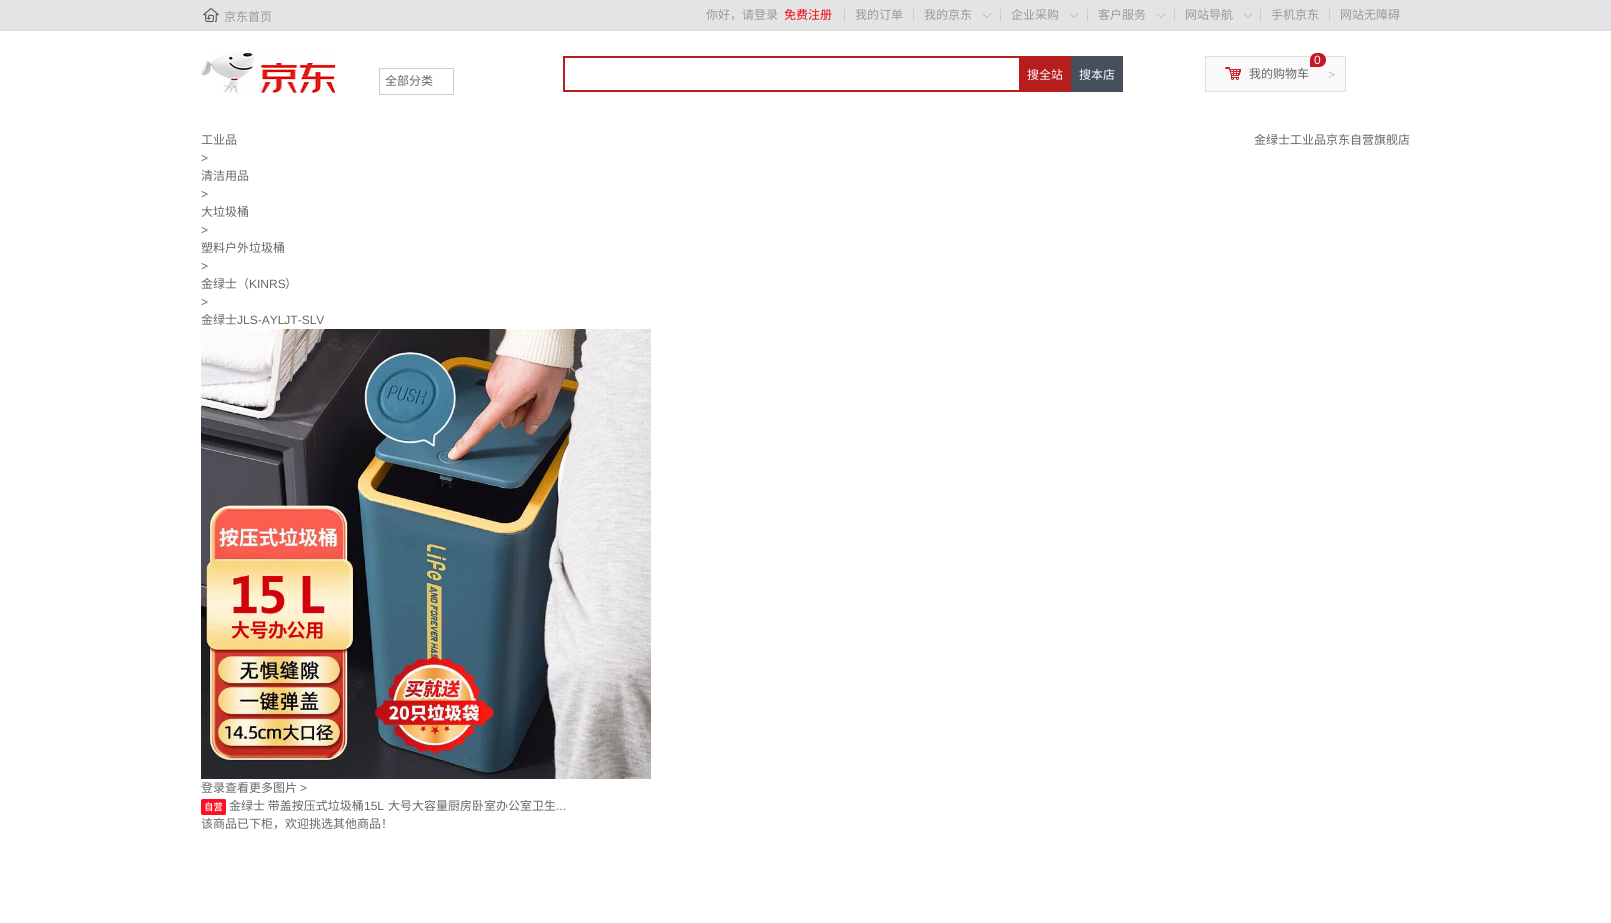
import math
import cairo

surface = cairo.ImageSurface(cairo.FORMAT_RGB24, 1611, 923)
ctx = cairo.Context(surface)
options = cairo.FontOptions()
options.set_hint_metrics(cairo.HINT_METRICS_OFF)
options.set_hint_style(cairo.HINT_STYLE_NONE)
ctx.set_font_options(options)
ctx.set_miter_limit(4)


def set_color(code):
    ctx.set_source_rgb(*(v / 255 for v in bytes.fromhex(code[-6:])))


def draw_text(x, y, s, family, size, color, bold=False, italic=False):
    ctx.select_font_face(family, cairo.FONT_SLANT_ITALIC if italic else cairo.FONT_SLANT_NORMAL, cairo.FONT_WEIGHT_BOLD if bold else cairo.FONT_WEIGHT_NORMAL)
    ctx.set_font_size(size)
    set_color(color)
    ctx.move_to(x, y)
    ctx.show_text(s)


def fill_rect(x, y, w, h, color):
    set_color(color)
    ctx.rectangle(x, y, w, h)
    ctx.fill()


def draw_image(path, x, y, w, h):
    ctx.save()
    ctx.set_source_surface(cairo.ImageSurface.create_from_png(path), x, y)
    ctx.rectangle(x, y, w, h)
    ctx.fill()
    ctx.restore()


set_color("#ffffff")
ctx.paint()
fill_rect(0, 0, 1611, 30, "#e3e4e5")
fill_rect(0, 30, 1611, 1, "#dddddd")
draw_image("assets/img1.png", 203, 8, 16, 15)
draw_text(224, 21, "京东首页", "Noto Sans CJK SC", 12, "#999999")
draw_text(706, 19, "你好，请登录", "Noto Sans CJK SC", 12, "#999999")
draw_text(784, 19, "免费注册", "Noto Sans CJK SC", 12, "#f30213")
fill_rect(844, 9, 1, 12, "#cccccc")
draw_text(855, 19, "我的订单", "Noto Sans CJK SC", 12, "#999999")
fill_rect(913, 9, 1, 12, "#cccccc")
draw_text(924, 19, "我的京东", "Noto Sans CJK SC", 12, "#999999")
draw_image("assets/img2.png", 982, 13, 10, 5)
fill_rect(1000, 9, 1, 12, "#cccccc")
draw_text(1011, 19, "企业采购", "Noto Sans CJK SC", 12, "#999999")
draw_image("assets/img2.png", 1069, 13, 10, 5)
fill_rect(1087, 9, 1, 12, "#cccccc")
draw_text(1098, 19, "客户服务", "Noto Sans CJK SC", 12, "#999999")
draw_image("assets/img2.png", 1156, 13, 10, 5)
fill_rect(1174, 9, 1, 12, "#cccccc")
draw_text(1185, 19, "网站导航", "Noto Sans CJK SC", 12, "#999999")
draw_image("assets/img2.png", 1243, 13, 10, 5)
fill_rect(1260, 9, 1, 12, "#cccccc")
draw_text(1271, 19, "手机京东", "Noto Sans CJK SC", 12, "#999999")
fill_rect(1329, 9, 1, 12, "#cccccc")
draw_text(1340, 19, "网站无障碍", "Noto Sans CJK SC", 12, "#999999")
draw_image("assets/img3.png", 201, 51, 135, 42)
ctx.rectangle(379.5, 68.5, 74, 26)
set_color("#cccccc")
ctx.set_line_width(1)
ctx.stroke()
draw_text(385, 85, "全部分类", "Noto Sans CJK SC", 12, "#666666")
fill_rect(563, 56, 456, 2, "#b61d1d")
fill_rect(563, 90, 456, 2, "#b61d1d")
fill_rect(563, 56, 2, 36, "#b61d1d")
fill_rect(1019, 56, 52, 36, "#b61d1d")
draw_text(1027, 79, "搜全站", "Noto Sans CJK SC", 12, "#ffffff")
fill_rect(1071, 56, 52, 36, "#474e5c")
draw_text(1079, 79, "搜本店", "Noto Sans CJK SC", 12, "#ffffff")
set_color("#f9f9f9")
ctx.rectangle(1205.5, 56.5, 140, 35)
ctx.fill_preserve()
set_color("#dfdfdf")
ctx.stroke()
set_color("#c81623")
ctx.new_path()
ctx.move_to(1317, 53)
ctx.line_to(1319, 53)
ctx.curve_to(1323, 53, 1326, 56, 1326, 60)
ctx.curve_to(1326, 64, 1323, 67, 1319, 67)
ctx.line_to(1310, 67)
ctx.line_to(1310, 60)
ctx.curve_to(1310, 56, 1313, 53, 1317, 53)
ctx.close_path()
ctx.fill()
draw_text(1314, 64, "0", "Liberation Sans", 12, "#ffffff")
draw_image("assets/img4.png", 1225, 67, 16, 13)
draw_text(1249, 78, "我的购物车", "Noto Sans CJK SC", 12, "#666666")
draw_text(1328, 79, ">", "Liberation Serif", 13, "#999999")
draw_text(201, 144, "工业品", "Noto Sans CJK SC", 12, "#666666")
draw_text(201, 162, ">", "Liberation Sans", 12, "#666666")
draw_text(201, 180, "清洁用品", "Noto Sans CJK SC", 12, "#666666")
draw_text(201, 198, ">", "Liberation Sans", 12, "#666666")
draw_text(201, 216, "大垃圾桶", "Noto Sans CJK SC", 12, "#666666")
draw_text(201, 234, ">", "Liberation Sans", 12, "#666666")
draw_text(201, 252, "塑料户外垃圾桶", "Noto Sans CJK SC", 12, "#666666")
draw_text(201, 270, ">", "Liberation Sans", 12, "#666666")
draw_text(201, 288, "金绿士（", "Noto Sans CJK SC", 12, "#666666")
draw_text(249, 288, "KINRS", "Liberation Sans", 12, "#666666")
draw_text(285, 288, "）", "Noto Sans CJK SC", 12, "#666666")
draw_text(201, 306, ">", "Liberation Sans", 12, "#666666")
draw_text(201, 324, "金绿士", "Noto Sans CJK SC", 12, "#666666")
draw_text(237, 324, "JLS-AYLJT-SLV", "Liberation Sans", 12, "#666666")
draw_text(1254, 144, "金绿士工业品京东自营旗舰店", "Noto Sans CJK SC", 12, "#666666")
draw_image("assets/img5.png", 201, 329, 450, 450)
draw_text(201, 792, "登录查看更多图片", "Noto Sans CJK SC", 12, "#666666")
draw_text(300, 792, ">", "Liberation Sans", 12, "#666666")
draw_image("assets/img6.png", 201, 799, 25, 16)
draw_text(229, 810, "金绿士 带盖按压式垃圾桶", "Noto Sans CJK SC", 12, "#666666")
draw_text(364, 810, "15L", "Liberation Sans", 12, "#666666")
draw_text(388, 810, "大号大容量厨房卧室办公室卫生", "Noto Sans CJK SC", 12, "#666666")
draw_text(556, 810, "...", "Liberation Sans", 12, "#666666")
draw_text(201, 828, "该商品已下柜，欢迎挑选其他商品！", "Noto Sans CJK SC", 12, "#666666")
surface.write_to_png("output.png")
